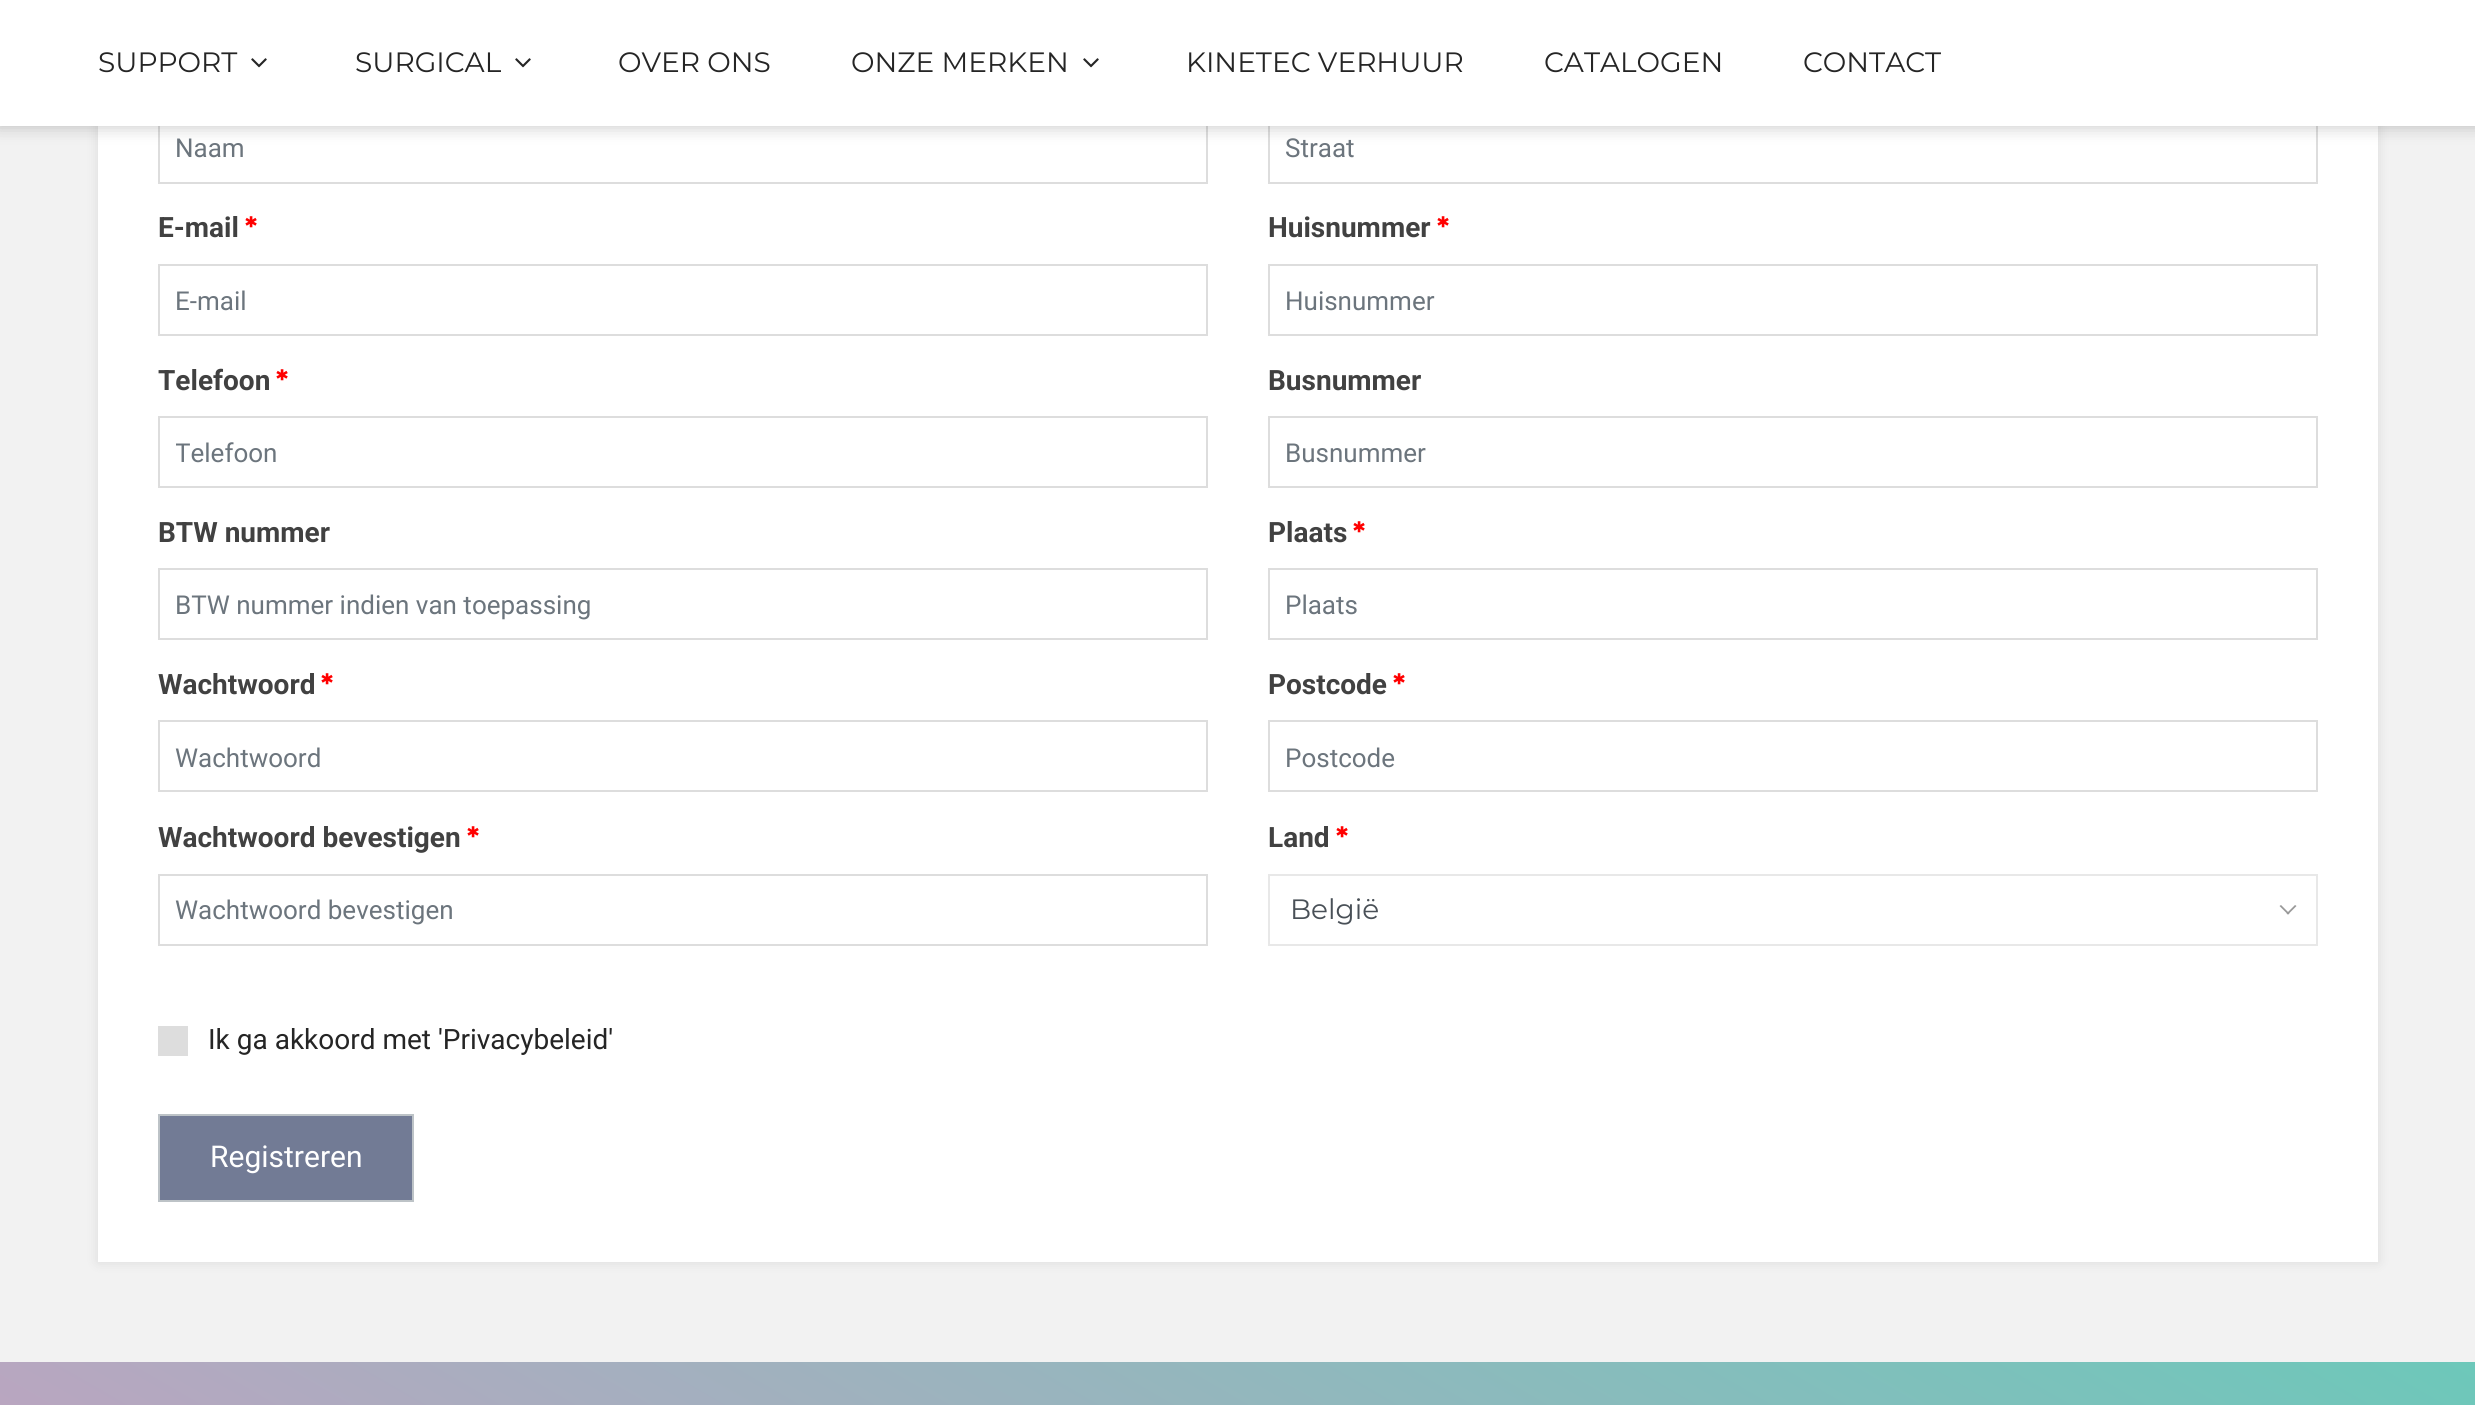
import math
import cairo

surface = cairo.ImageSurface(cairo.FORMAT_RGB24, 2475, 1405)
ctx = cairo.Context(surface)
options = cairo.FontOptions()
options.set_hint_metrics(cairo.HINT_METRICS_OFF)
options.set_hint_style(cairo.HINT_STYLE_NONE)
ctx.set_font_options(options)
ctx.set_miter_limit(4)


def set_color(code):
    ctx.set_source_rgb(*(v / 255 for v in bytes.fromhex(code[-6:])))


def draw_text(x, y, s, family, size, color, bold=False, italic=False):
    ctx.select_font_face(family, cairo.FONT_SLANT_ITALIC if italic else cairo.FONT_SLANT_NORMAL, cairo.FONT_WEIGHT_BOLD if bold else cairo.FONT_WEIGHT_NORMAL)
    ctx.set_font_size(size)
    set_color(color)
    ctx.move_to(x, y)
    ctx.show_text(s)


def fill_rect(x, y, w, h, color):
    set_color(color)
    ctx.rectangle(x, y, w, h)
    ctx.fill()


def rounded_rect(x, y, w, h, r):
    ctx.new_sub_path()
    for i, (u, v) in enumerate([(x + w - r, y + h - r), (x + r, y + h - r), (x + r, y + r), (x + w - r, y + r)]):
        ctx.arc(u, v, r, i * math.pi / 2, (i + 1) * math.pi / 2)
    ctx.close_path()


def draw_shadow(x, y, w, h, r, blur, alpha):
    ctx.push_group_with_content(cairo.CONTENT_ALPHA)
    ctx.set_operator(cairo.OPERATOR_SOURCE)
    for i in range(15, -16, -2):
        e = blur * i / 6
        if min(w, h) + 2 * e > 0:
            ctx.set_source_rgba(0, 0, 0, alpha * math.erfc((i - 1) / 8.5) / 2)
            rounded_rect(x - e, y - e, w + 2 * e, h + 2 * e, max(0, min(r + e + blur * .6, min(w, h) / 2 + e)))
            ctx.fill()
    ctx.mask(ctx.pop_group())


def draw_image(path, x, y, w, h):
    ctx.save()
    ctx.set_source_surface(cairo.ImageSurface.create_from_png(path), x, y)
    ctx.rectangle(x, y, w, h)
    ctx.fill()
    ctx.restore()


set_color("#f2f2f2")
ctx.paint()
set_color("#000000")
draw_shadow(98, -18, 2280, 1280, 0, 6, 0.1)
fill_rect(98, 126, 2280, 1136, "#ffffff")
ctx.rectangle(159, 113, 1048, 70)
set_color("#dddddd")
ctx.stroke()
ctx.rectangle(1269, 113, 1048, 70)
ctx.stroke()
set_color("#000000")
draw_shadow(-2, -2, 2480, 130, 0, 8, 0.2)
fill_rect(0, 0, 2475, 126, "#ffffff")
draw_text(98, 72, "SUPPORT", "Montserrat", 28, "#252525")
draw_image("assets/img1.png", 251, 58, 16, 10)
draw_text(355, 72, "SURGICAL", "Montserrat", 28, "#252525")
draw_image("assets/img1.png", 515, 58, 16, 10)
draw_text(618, 72, "OVER ONS", "Montserrat", 28, "#252525")
draw_text(851, 72, "ONZE MERKEN", "Montserrat", 28, "#252525")
draw_image("assets/img1.png", 1083, 58, 16, 10)
draw_text(1186, 72, "KINETEC VERHUUR", "Montserrat", 28, "#252525")
draw_text(1544, 72, "CATALOGEN", "Montserrat", 28, "#252525")
draw_text(1803, 72, "CONTACT", "Montserrat", 28, "#252525")
draw_text(175, 157, "Naam", "Roboto", 26, "#6c757d")
draw_text(158, 237, "E-mail", "Roboto", 28, "#414141", bold=True)
draw_text(245, 237, "*", "Montserrat", 28, "#ff0000", bold=True)
ctx.rectangle(159, 265, 1048, 70)
set_color("#dddddd")
ctx.stroke()
draw_text(175, 310, "E-mail", "Roboto", 26, "#6c757d")
draw_text(158, 390, "Telefoon", "Roboto", 28, "#414141", bold=True)
draw_text(276, 390, "*", "Montserrat", 28, "#ff0000", bold=True)
ctx.rectangle(159, 417, 1048, 70)
set_color("#dddddd")
ctx.stroke()
ctx.save()
ctx.rectangle(176, 438, 1016, 30)
ctx.clip()
draw_text(175, 462, "Telefoon", "Roboto", 26, "#6c757d")
ctx.restore()
draw_text(158, 542, "BTW nummer", "Roboto", 28, "#414141", bold=True)
ctx.rectangle(159, 569, 1048, 70)
set_color("#dddddd")
ctx.stroke()
draw_text(175, 614, "BTW nummer indien van toepassing", "Roboto", 26, "#6c757d")
draw_text(158, 694, "Wachtwoord", "Roboto", 28, "#414141", bold=True)
draw_text(321, 694, "*", "Montserrat", 28, "#ff0000", bold=True)
ctx.rectangle(159, 721, 1048, 70)
set_color("#dddddd")
ctx.stroke()
draw_text(175, 767, "Wachtwoord", "Roboto", 26, "#6c757d")
draw_text(158, 847, "Wachtwoord bevestigen", "Roboto", 28, "#414141", bold=True)
draw_text(467, 847, "*", "Montserrat", 28, "#ff0000", bold=True)
ctx.rectangle(159, 875, 1048, 70)
set_color("#dddddd")
ctx.stroke()
draw_text(175, 919, "Wachtwoord bevestigen", "Roboto", 26, "#6c757d")
draw_text(1285, 157, "Straat", "Roboto", 26, "#6c757d")
draw_text(1268, 237, "Huisnummer", "Roboto", 28, "#414141", bold=True)
draw_text(1437, 237, "*", "Montserrat", 28, "#ff0000", bold=True)
ctx.rectangle(1269, 265, 1048, 70)
set_color("#dddddd")
ctx.stroke()
draw_text(1285, 310, "Huisnummer", "Roboto", 26, "#6c757d")
draw_text(1268, 390, "Busnummer", "Roboto", 28, "#414141", bold=True)
ctx.rectangle(1269, 417, 1048, 70)
set_color("#dddddd")
ctx.stroke()
draw_text(1285, 462, "Busnummer", "Roboto", 26, "#6c757d")
draw_text(1268, 542, "Plaats", "Roboto", 28, "#414141", bold=True)
draw_text(1353, 542, "*", "Montserrat", 28, "#ff0000", bold=True)
ctx.rectangle(1269, 569, 1048, 70)
set_color("#dddddd")
ctx.stroke()
draw_text(1285, 614, "Plaats", "Roboto", 26, "#6c757d")
draw_text(1268, 694, "Postcode", "Roboto", 28, "#414141", bold=True)
draw_text(1393, 694, "*", "Montserrat", 28, "#ff0000", bold=True)
ctx.rectangle(1269, 721, 1048, 70)
set_color("#dddddd")
ctx.stroke()
draw_text(1285, 767, "Postcode", "Roboto", 26, "#6c757d")
draw_text(1268, 847, "Land", "Roboto", 28, "#414141", bold=True)
draw_text(1336, 847, "*", "Montserrat", 28, "#ff0000", bold=True)
ctx.rectangle(1269, 875, 1048, 70)
set_color("#e8e8e8")
ctx.stroke()
draw_text(1290, 919, "België", "Montserrat", 28, "#495057")
set_color("#999999")
ctx.new_path()
ctx.move_to(2295, 905)
ctx.line_to(2296.5, 906)
ctx.line_to(2288, 914.5)
ctx.line_to(2286.5, 913.5)
ctx.close_path()
ctx.fill()
ctx.new_path()
ctx.move_to(2281, 905)
ctx.line_to(2289.5, 913.5)
ctx.line_to(2288, 914.5)
ctx.line_to(2279.5, 906)
ctx.close_path()
ctx.fill()
fill_rect(158, 1026, 30, 30, "#dddddd")
draw_text(208, 1049, "Ik ga akkoord met 'Privacybeleid'", "Roboto", 28, "#252525")
set_color("#727b95")
ctx.rectangle(159, 1115, 254, 86)
ctx.fill_preserve()
set_color("#bdc3c7")
ctx.stroke()
draw_text(210, 1167, "Registreren", "Roboto", 30, "#ffffff")
gradient = cairo.LinearGradient(678, 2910, 1798, 970)
gradient.add_color_stop_rgba(0.2, 0.847, 0.596, 0.765, 1)
gradient.add_color_stop_rgba(1, 0.427, 0.784, 0.729, 1)
ctx.set_source(gradient)
ctx.rectangle(0, 1362, 2475, 43)
ctx.fill()
surface.write_to_png("output.png")
